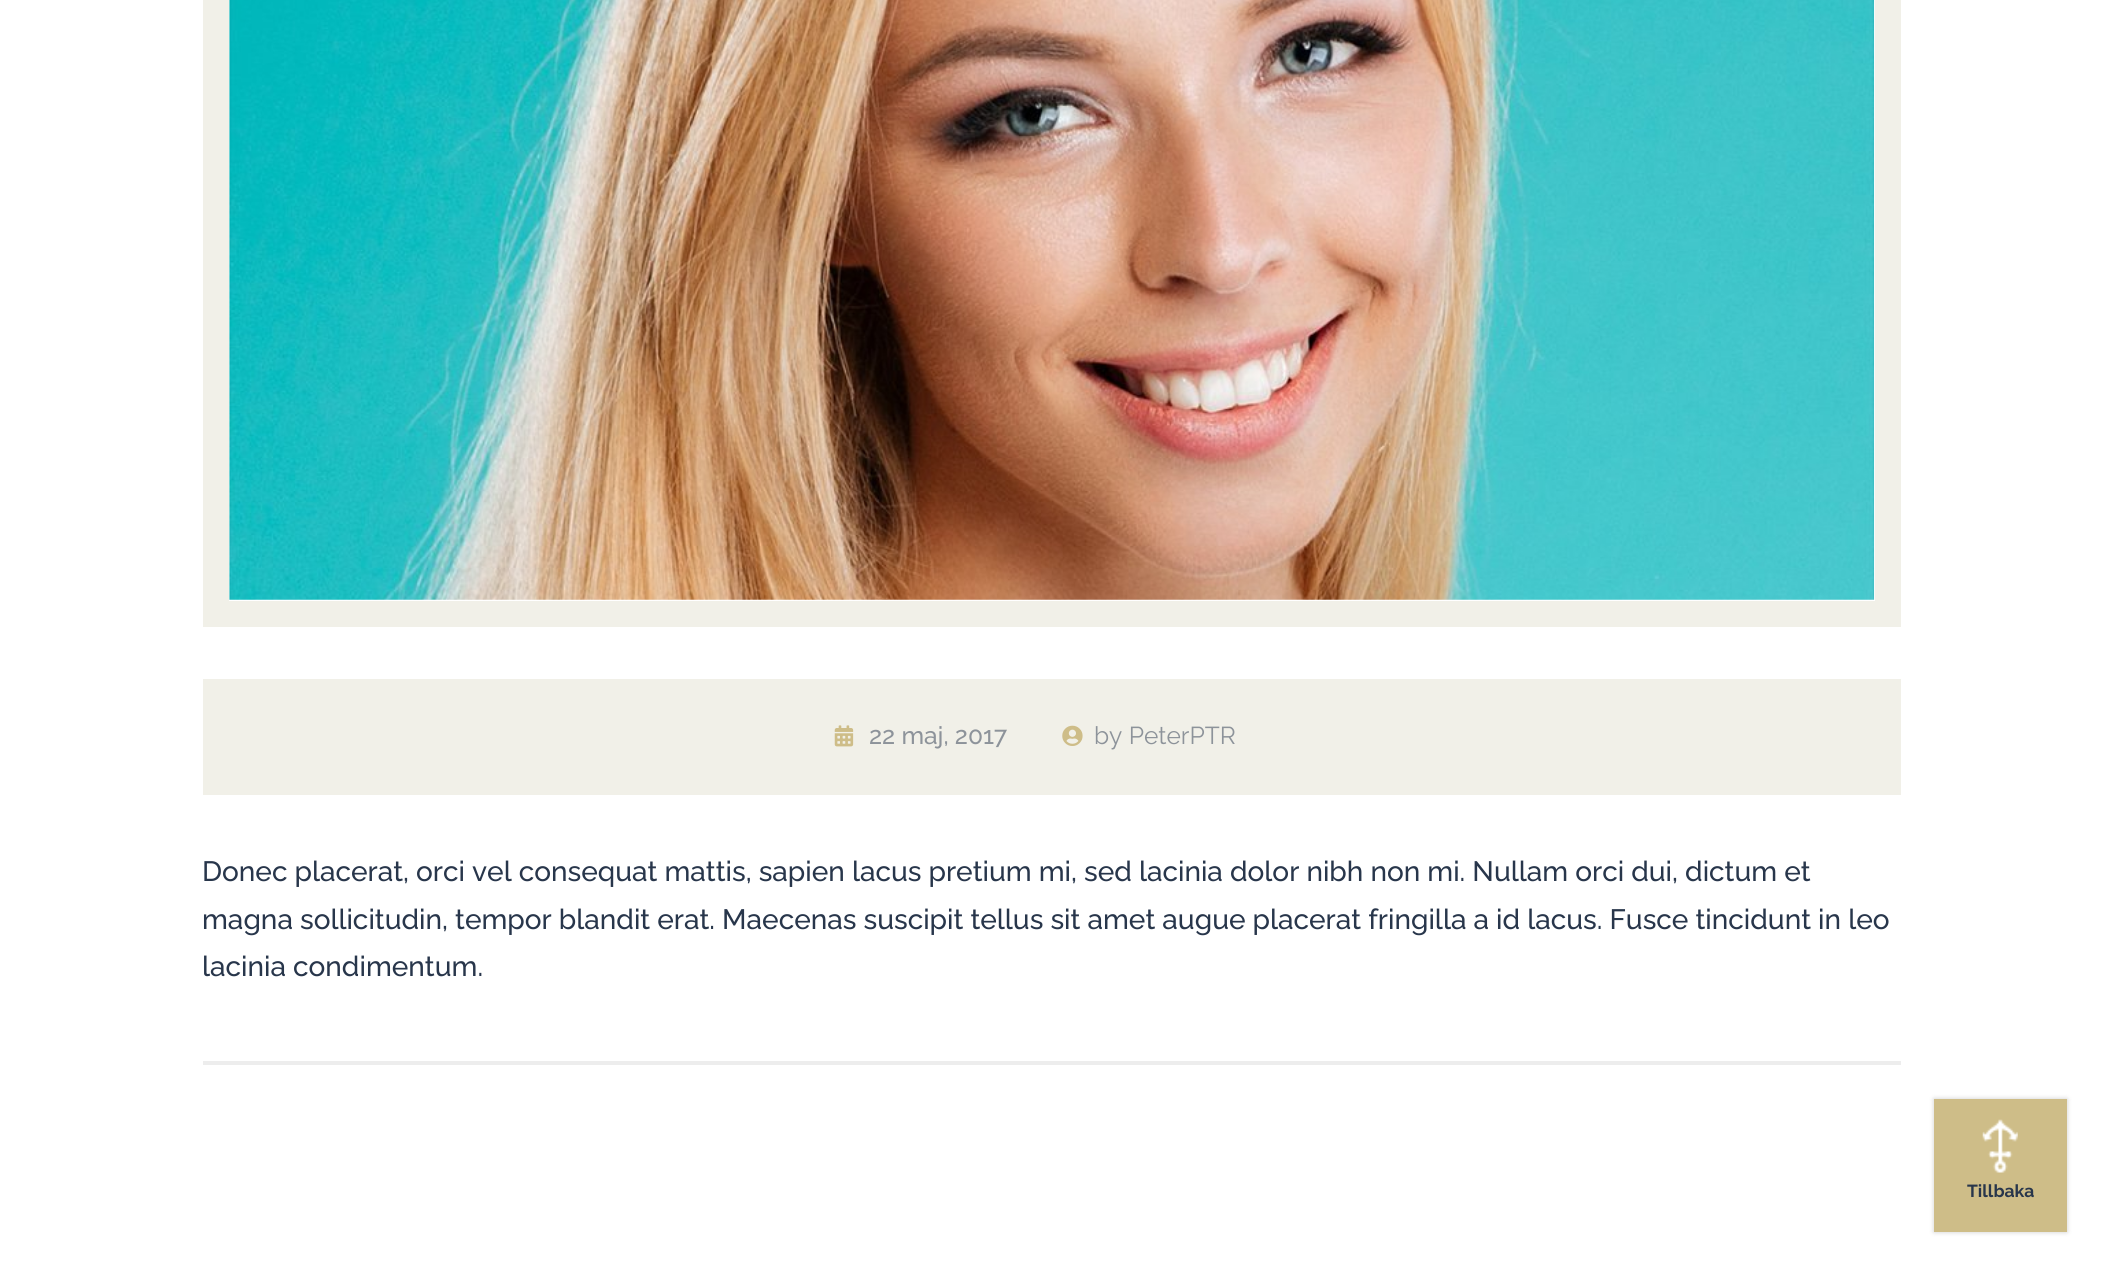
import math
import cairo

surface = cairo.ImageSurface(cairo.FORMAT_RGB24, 2101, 1266)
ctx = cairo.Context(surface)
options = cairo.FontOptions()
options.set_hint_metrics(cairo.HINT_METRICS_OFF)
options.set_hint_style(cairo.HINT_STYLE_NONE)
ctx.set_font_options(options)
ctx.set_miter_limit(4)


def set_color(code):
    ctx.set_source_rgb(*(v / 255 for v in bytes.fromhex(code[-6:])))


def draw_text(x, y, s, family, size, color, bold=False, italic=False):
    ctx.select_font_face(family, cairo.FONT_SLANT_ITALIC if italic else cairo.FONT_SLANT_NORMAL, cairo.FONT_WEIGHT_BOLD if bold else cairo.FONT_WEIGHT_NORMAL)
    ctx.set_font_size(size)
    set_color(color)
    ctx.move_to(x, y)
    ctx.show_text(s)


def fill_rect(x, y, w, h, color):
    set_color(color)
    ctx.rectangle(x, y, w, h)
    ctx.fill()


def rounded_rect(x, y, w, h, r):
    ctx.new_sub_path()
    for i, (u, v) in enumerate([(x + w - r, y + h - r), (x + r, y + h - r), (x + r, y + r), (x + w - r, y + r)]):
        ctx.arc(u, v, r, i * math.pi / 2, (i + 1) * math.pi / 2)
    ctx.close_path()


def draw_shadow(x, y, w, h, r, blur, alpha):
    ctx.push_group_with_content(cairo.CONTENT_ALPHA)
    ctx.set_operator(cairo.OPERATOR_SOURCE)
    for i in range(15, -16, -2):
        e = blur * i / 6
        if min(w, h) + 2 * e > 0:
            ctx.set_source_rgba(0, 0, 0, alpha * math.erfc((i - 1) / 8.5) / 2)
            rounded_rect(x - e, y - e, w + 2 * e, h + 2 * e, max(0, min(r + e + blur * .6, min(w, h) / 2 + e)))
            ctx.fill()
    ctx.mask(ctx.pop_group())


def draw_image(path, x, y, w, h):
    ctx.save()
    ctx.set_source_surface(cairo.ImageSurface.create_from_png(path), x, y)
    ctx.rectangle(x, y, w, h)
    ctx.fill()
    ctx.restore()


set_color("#ffffff")
ctx.paint()
ctx.rectangle(216, -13, 1672, 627)
set_color("#f1f0e8")
ctx.set_line_width(26)
ctx.stroke()
draw_image("assets/img1.png", 229, 0, 1646, 600)
fill_rect(203, 679, 1698, 116, "#f1f0e8")
draw_image("assets/img2.png", 834, 725, 20, 22)
draw_text(869, 744, "22 maj, 2017", "Raleway Medium", 24.5, "#8d939a")
draw_image("assets/img3.png", 1062, 725, 21, 21)
draw_text(1094, 744, "by PeterPTR", "Raleway", 24.5, "#8d939a")
fill_rect(203, 1061, 1698, 4, "#ededed")
draw_text(202, 881, "Donec placerat, orci vel consequat mattis, sapien lacus pretium mi, sed lacinia dolor nibh non mi. Nullam orci dui, dictum et", "Raleway Medium", 28, "#28364b")
draw_text(202, 929, "magna sollicitudin, tempor blandit erat. Maecenas suscipit tellus sit amet augue placerat fringilla a id lacus. Fusce tincidunt in leo", "Raleway Medium", 28, "#28364b")
draw_text(202, 976, "lacinia condimentum.", "Raleway Medium", 28, "#28364b")
set_color("#000000")
draw_shadow(1934, 1099, 133, 133, 0, 2.5, 0.2)
fill_rect(1934, 1099, 133, 133, "#cebd88")
draw_image("assets/img4.png", 1982, 1119, 36, 54)
draw_text(1967, 1197, "Tillbaka", "Raleway", 17.5, "#28364b", bold=True)
surface.write_to_png("output.png")
